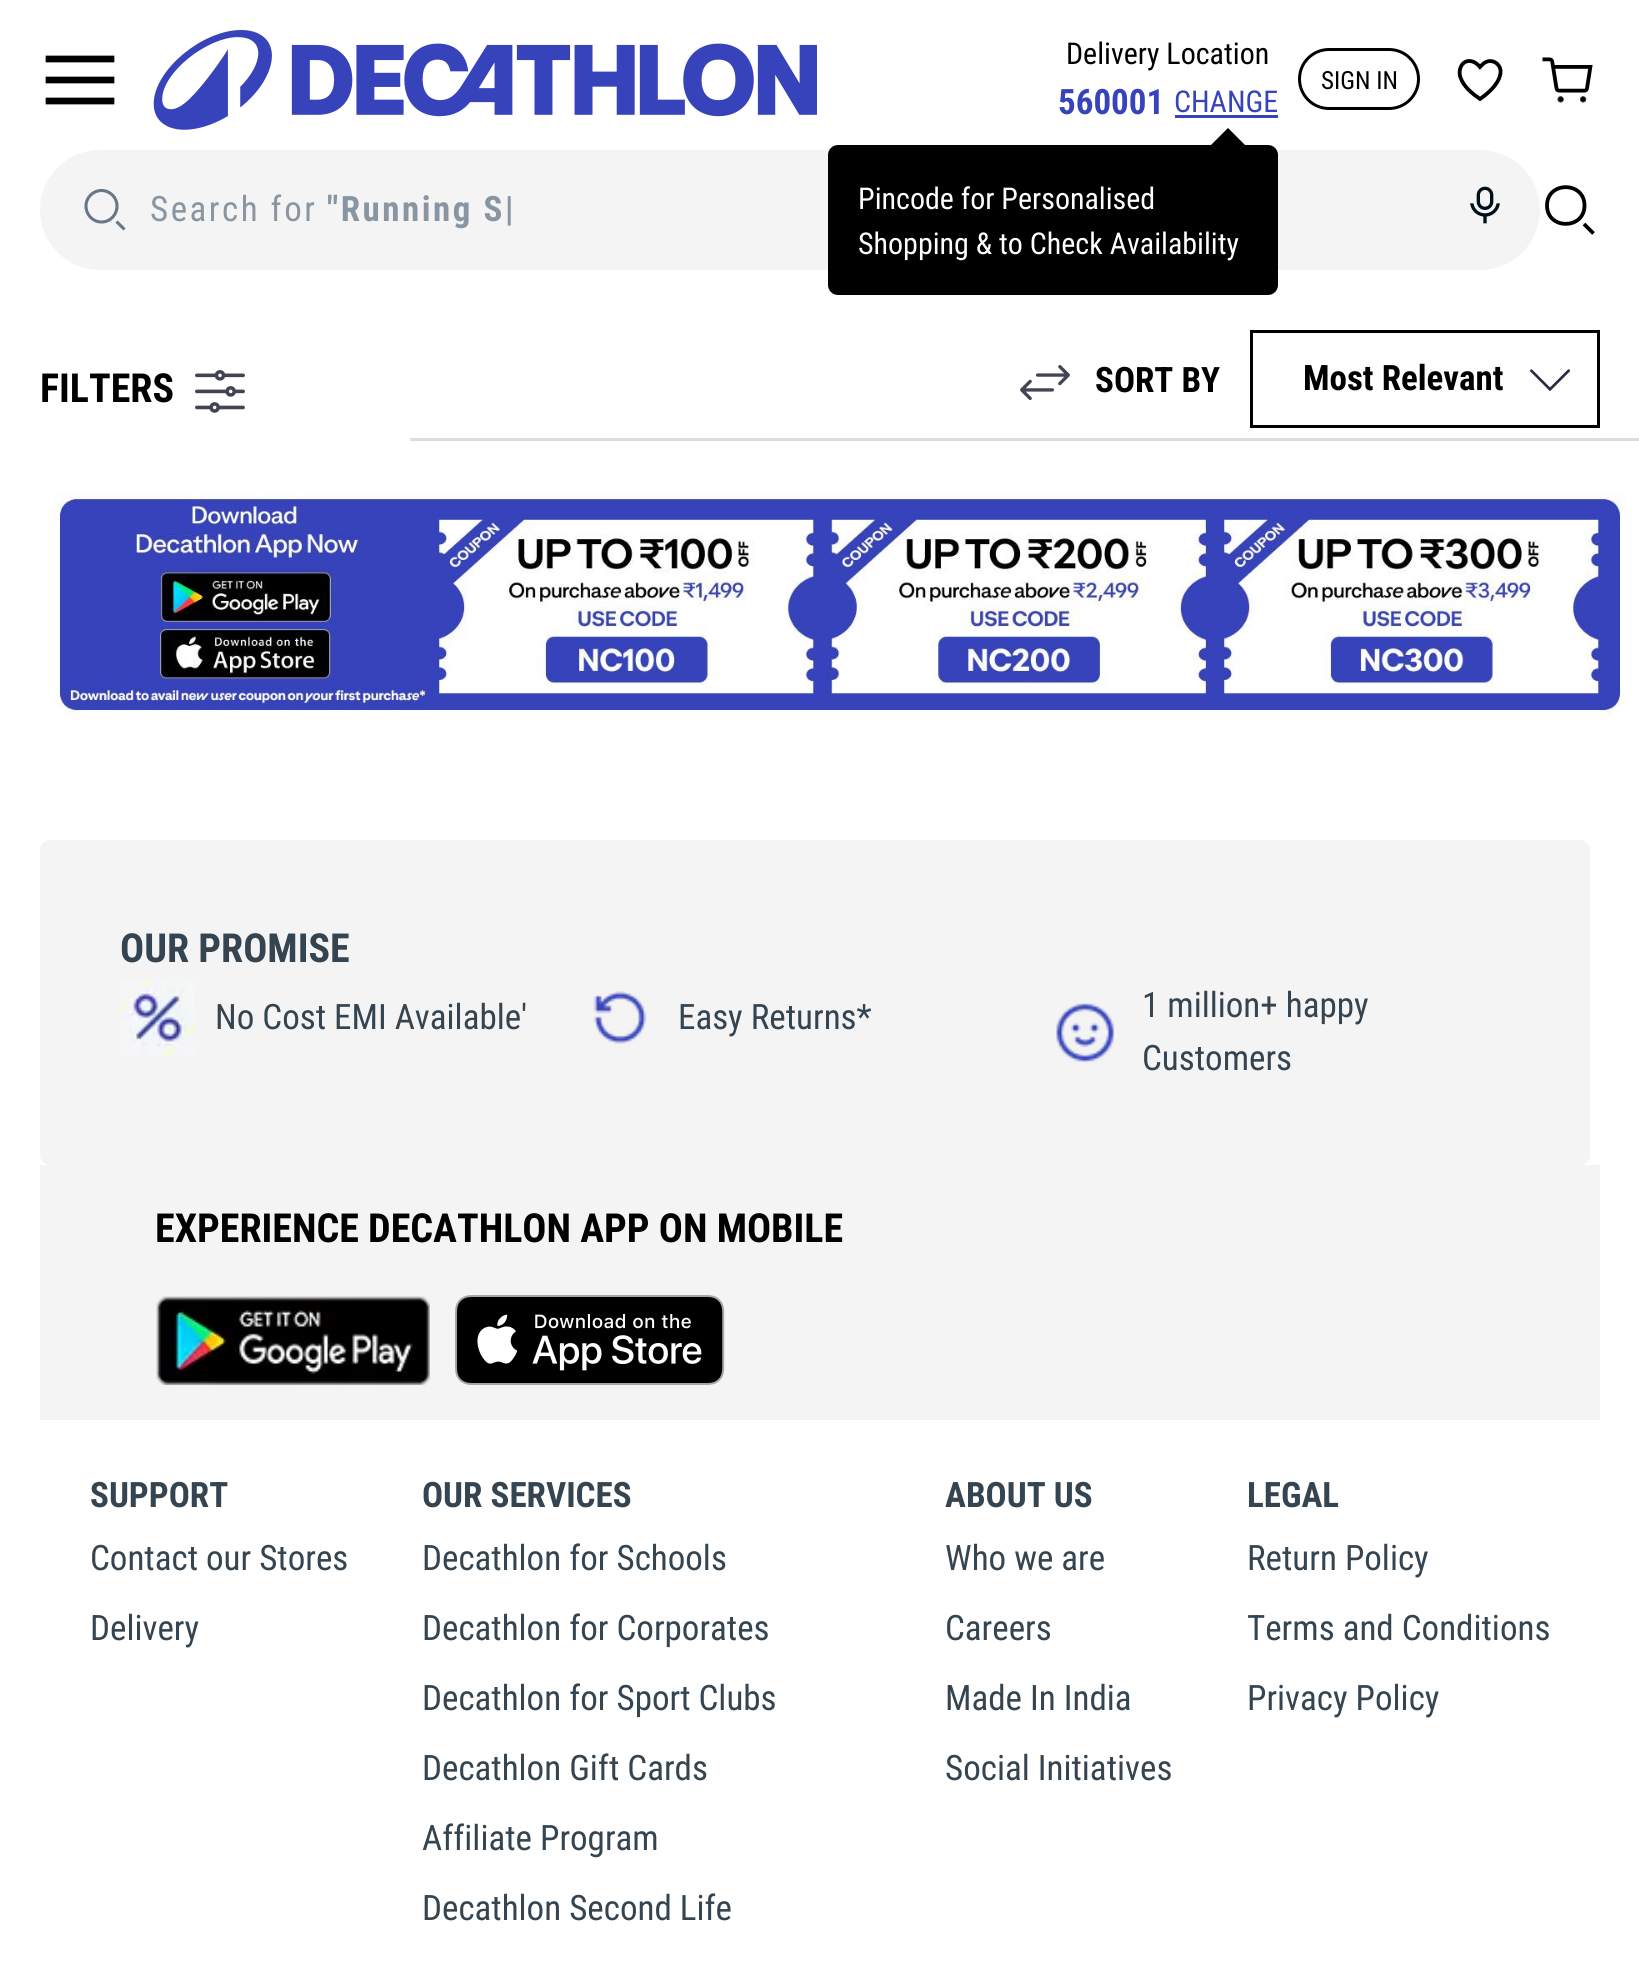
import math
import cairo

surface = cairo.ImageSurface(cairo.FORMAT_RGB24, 1639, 1982)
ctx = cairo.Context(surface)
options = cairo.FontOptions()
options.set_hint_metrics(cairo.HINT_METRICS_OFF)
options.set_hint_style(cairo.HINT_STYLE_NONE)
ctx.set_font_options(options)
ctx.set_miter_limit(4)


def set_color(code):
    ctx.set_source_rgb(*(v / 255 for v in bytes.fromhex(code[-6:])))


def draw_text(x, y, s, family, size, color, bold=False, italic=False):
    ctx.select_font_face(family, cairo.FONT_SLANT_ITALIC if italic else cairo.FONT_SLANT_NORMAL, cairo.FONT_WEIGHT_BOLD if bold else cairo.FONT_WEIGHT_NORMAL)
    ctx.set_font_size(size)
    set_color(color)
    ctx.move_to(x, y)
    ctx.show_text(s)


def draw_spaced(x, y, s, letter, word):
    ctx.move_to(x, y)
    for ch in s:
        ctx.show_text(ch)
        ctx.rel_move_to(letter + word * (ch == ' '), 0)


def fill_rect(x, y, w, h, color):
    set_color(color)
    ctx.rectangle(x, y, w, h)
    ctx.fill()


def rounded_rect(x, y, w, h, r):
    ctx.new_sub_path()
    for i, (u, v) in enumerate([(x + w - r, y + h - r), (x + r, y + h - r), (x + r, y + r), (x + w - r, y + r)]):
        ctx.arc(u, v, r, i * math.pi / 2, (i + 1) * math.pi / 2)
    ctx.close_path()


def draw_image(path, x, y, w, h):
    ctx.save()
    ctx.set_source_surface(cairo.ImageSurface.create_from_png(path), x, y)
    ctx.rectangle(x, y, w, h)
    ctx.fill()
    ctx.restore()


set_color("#ffffff")
ctx.paint()
set_color("#f5f4f5")
rounded_rect(40, 150, 1500, 120, 60)
ctx.fill()
ctx.new_path()
ctx.move_to(124.5, 229.5)
ctx.line_to(116.5, 221.5)
ctx.move_to(117, 206)
ctx.curve_to(117, 215, 110, 222, 101.5, 222)
ctx.curve_to(93, 222, 86, 215, 86, 206)
ctx.curve_to(86, 197.5, 93, 190.5, 101.5, 190.5)
ctx.curve_to(110, 190.5, 117, 197.5, 117, 206)
ctx.close_path()
set_color("#687787")
ctx.set_line_width(3.1)
ctx.stroke()
ctx.select_font_face("Roboto Condensed")
ctx.set_font_size(35)
set_color("#8996a2")
draw_spaced(150, 221, "Search for", 2.5, 0)
ctx.select_font_face("Roboto Condensed", cairo.FONT_SLANT_NORMAL, cairo.FONT_WEIGHT_BOLD)
draw_spaced(327, 221, "\"Running S|", 2.5, 0)
draw_image("assets/img1.png", 1470, 186, 30, 38)
ctx.new_path()
ctx.move_to(1593.5, 233.5)
ctx.line_to(1584, 224)
ctx.move_to(1584.5, 205.5)
ctx.curve_to(1584.5, 230, 1547, 230, 1547, 205.5)
ctx.curve_to(1547, 181, 1584.5, 181, 1584.5, 205.5)
ctx.close_path()
set_color("#000000")
ctx.set_line_width(3.8)
ctx.stroke()
ctx.new_path()
ctx.move_to(49, 80)
ctx.line_to(111, 80)
ctx.move_to(49, 59)
ctx.line_to(111, 59)
ctx.move_to(49, 101)
ctx.line_to(111, 101)
ctx.set_line_width(6.7)
ctx.set_line_cap(cairo.LINE_CAP_SQUARE)
ctx.stroke()
draw_image("assets/img2.png", 153, 30, 664, 100)
draw_text(1066, 64, "Delivery Location", "Roboto Condensed", 30, "#000000")
draw_text(1058, 114, "560001", "Roboto Condensed", 35, "#3643ba", bold=True)
draw_text(1174, 112, "CHANGE", "Roboto Condensed", 30, "#3643ba")
fill_rect(1175, 115, 103, 3, "#3643ba")
set_color("#000000")
ctx.new_path()
ctx.move_to(1248, 148)
ctx.line_to(1208, 148)
ctx.line_to(1228, 128)
ctx.close_path()
ctx.fill()
rounded_rect(828, 145, 450, 150, 10)
ctx.fill()
draw_text(858, 209, "Pincode for Personalised", "Roboto Condensed", 30, "#ffffff")
draw_text(858, 254, "Shopping & to Check Availability", "Roboto Condensed", 30, "#ffffff")
rounded_rect(1299.5, 49.5, 119, 59, 29.5)
set_color("#000000")
ctx.set_line_width(3)
ctx.set_line_cap(cairo.LINE_CAP_BUTT)
ctx.stroke()
draw_text(1321, 89, "SIGN IN", "Roboto Condensed", 25, "#000000")
ctx.new_path()
ctx.move_to(1500.5, 70)
ctx.curve_to(1499.5, 63.5, 1492.5, 59, 1486, 62)
ctx.curve_to(1483.5, 63, 1482, 65, 1480, 67)
ctx.curve_to(1478, 64.5, 1475.5, 62.5, 1472.5, 61.5)
ctx.curve_to(1462.5, 58.5, 1457.5, 69.5, 1460.5, 77.5)
ctx.curve_to(1463.5, 86.5, 1472, 93.5, 1480, 99)
ctx.curve_to(1500, 85, 1501, 74, 1500.5, 70)
ctx.close_path()
ctx.set_line_width(3.8)
ctx.stroke()
draw_image("assets/img3.png", 1542, 57, 51, 46)
draw_text(40, 402, "FILTERS", "Roboto Condensed", 40, "#000000", bold=True)
draw_image("assets/img4.png", 195, 370, 50, 43)
fill_rect(410, 438, 1229, 3, "#d9dde1")
draw_image("assets/img5.png", 1020, 365, 50, 35)
draw_text(1095, 392, "SORT BY", "Roboto Condensed", 35, "#000000", bold=True)
ctx.rectangle(1251.5, 331.5, 347, 95)
ctx.set_line_width(3)
ctx.stroke()
draw_text(1303, 390, "Most Relevant", "Roboto Condensed", 35, "#000000", bold=True)
draw_image("assets/img6.png", 1530, 369, 40, 22)
draw_image("assets/img7.png", 53, 493, 1574, 227)
set_color("#f5f4f5")
rounded_rect(40, 840, 1550, 325, 10)
ctx.fill()
draw_text(120, 962, "OUR PROMISE", "Roboto Condensed", 40, "#344450", bold=True)
draw_image("assets/img8.png", 120, 980, 75, 75)
draw_text(215, 1029, "No Cost EMI Available'", "Roboto Condensed", 35, "#344450")
draw_image("assets/img9.png", 593, 991, 54, 53)
draw_text(678, 1029, "Easy Returns*", "Roboto Condensed", 35, "#344450")
draw_image("assets/img10.png", 1055, 1003, 60, 60)
draw_text(1142, 1017, "1 million+ happy", "Roboto Condensed", 35, "#344450")
draw_text(1142, 1070, "Customers", "Roboto Condensed", 35, "#344450")
fill_rect(40, 1165, 1560, 255, "#f5f4f5")
draw_text(155, 1242, "EXPERIENCE DECATHLON APP ON MOBILE", "Roboto Condensed", 40, "#000000", bold=True)
draw_image("assets/img11.png", 156, 1296, 274, 89)
draw_image("assets/img12.png", 455, 1295, 270, 90)
draw_text(90, 1507, "SUPPORT", "Roboto Condensed", 35, "#344450", bold=True)
draw_text(90, 1570, "Contact our Stores", "Roboto Condensed", 35, "#344450")
draw_text(90, 1640, "Delivery", "Roboto Condensed", 35, "#344450")
draw_text(422, 1507, "OUR SERVICES", "Roboto Condensed", 35, "#344450", bold=True)
draw_text(422, 1570, "Decathlon for Schools", "Roboto Condensed", 35, "#344450")
draw_text(422, 1640, "Decathlon for Corporates", "Roboto Condensed", 35, "#344450")
draw_text(422, 1710, "Decathlon for Sport Clubs", "Roboto Condensed", 35, "#344450")
draw_text(422, 1780, "Decathlon Gift Cards", "Roboto Condensed", 35, "#344450")
draw_text(422, 1850, "Affiliate Program", "Roboto Condensed", 35, "#344450")
draw_text(422, 1920, "Decathlon Second Life", "Roboto Condensed", 35, "#344450")
draw_text(945, 1507, "ABOUT US", "Roboto Condensed", 35, "#344450", bold=True)
draw_text(945, 1570, "Who we are", "Roboto Condensed", 35, "#344450")
draw_text(945, 1640, "Careers", "Roboto Condensed", 35, "#344450")
draw_text(945, 1710, "Made In India", "Roboto Condensed", 35, "#344450")
draw_text(945, 1780, "Social Initiatives", "Roboto Condensed", 35, "#344450")
draw_text(1247, 1507, "LEGAL", "Roboto Condensed", 35, "#344450", bold=True)
draw_text(1247, 1570, "Return Policy", "Roboto Condensed", 35, "#344450")
draw_text(1247, 1640, "Terms and Conditions", "Roboto Condensed", 35, "#344450")
draw_text(1247, 1710, "Privacy Policy", "Roboto Condensed", 35, "#344450")
surface.write_to_png("output.png")
